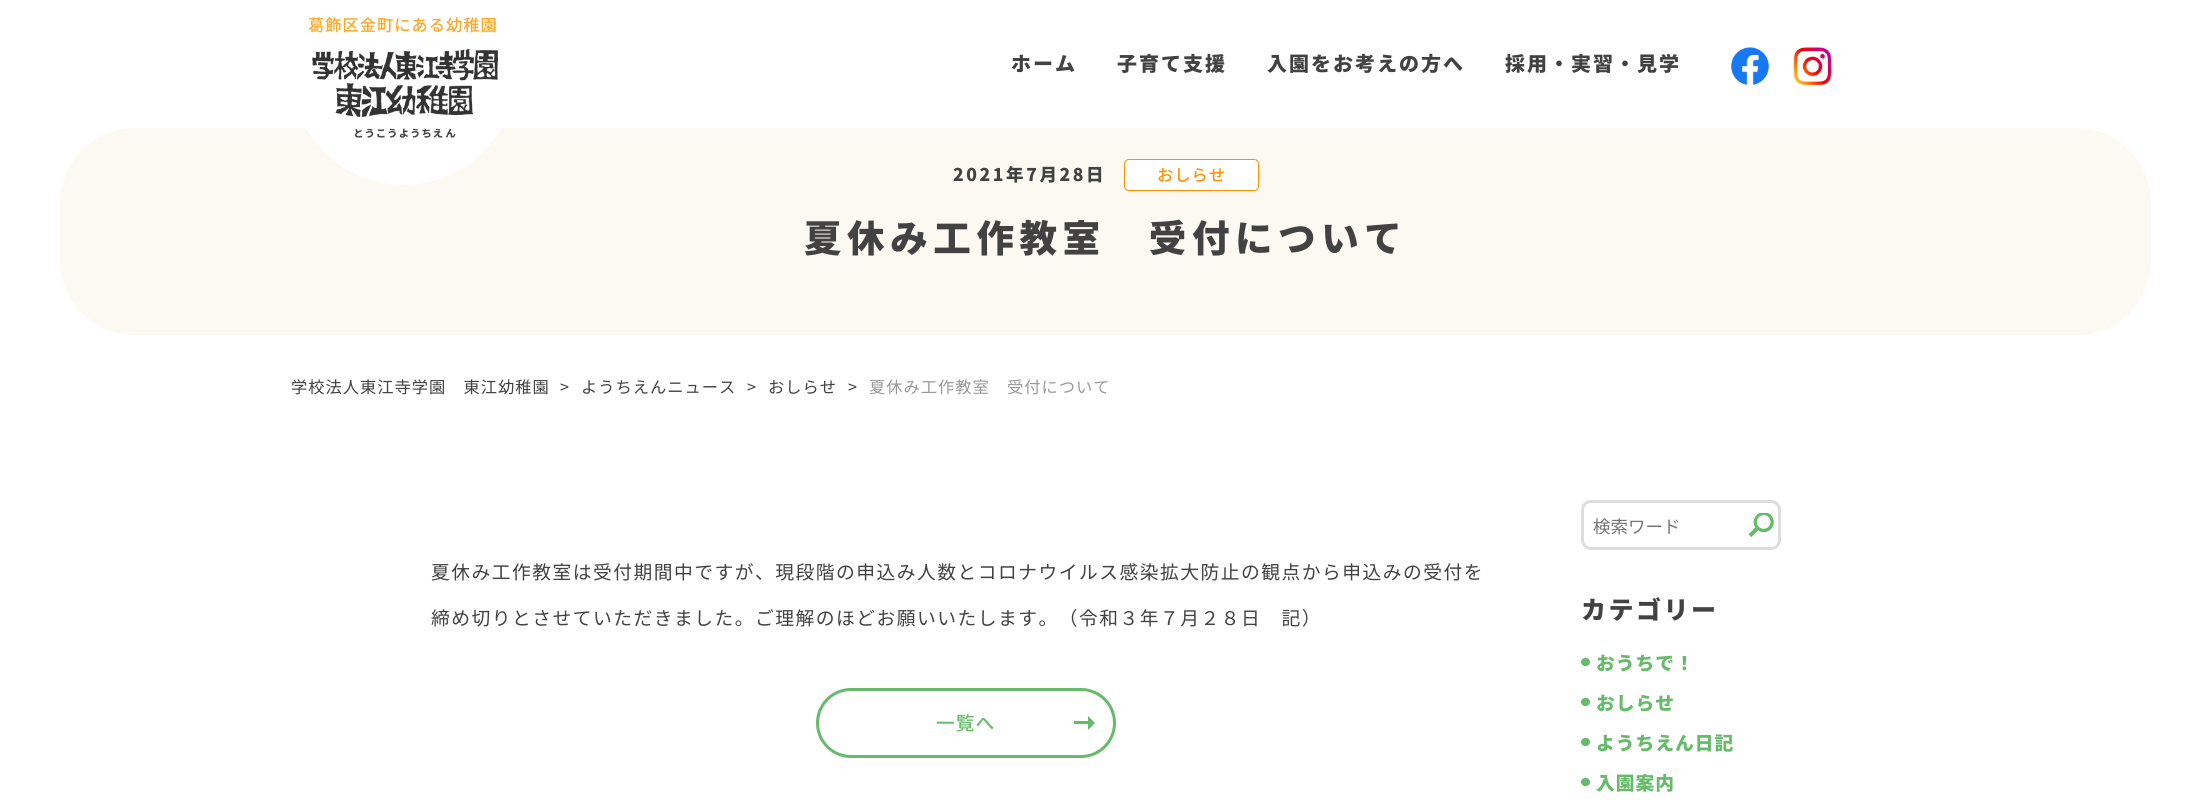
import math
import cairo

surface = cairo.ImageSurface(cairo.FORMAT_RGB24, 2211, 811)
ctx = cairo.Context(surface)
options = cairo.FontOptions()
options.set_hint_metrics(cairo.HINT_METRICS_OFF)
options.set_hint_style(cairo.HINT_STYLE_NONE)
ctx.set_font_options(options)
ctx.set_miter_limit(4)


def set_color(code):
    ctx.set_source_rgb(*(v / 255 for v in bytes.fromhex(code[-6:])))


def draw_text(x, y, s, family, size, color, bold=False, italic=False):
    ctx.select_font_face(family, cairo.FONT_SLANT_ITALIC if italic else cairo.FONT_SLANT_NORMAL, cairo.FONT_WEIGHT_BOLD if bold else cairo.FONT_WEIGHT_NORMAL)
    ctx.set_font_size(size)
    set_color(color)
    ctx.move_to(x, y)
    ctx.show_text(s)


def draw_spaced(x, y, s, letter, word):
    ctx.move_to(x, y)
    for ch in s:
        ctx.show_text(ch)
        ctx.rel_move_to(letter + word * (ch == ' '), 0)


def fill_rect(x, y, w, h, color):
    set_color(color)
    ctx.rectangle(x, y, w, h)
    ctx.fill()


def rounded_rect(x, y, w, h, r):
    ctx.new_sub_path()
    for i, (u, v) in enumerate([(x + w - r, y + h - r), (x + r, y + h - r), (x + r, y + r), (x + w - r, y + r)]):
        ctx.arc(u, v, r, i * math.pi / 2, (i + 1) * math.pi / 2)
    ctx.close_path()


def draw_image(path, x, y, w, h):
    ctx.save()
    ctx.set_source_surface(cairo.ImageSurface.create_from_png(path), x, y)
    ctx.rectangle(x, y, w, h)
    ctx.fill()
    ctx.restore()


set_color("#ffffff")
ctx.paint()
ctx.select_font_face("Noto Sans JP Medium")
ctx.set_font_size(16.25)
set_color("#ffa726")
draw_spaced(308, 31, "葛飾区金町にある幼稚園", 1, 0)
set_color("#fcf9f2")
rounded_rect(60, 128, 2091, 207, 75)
ctx.fill()
draw_image("assets/img1.png", 306, 48, 195, 137)
ctx.select_font_face("Noto Sans JP Black")
ctx.set_font_size(20)
set_color("#424242")
draw_spaced(1011, 71, "ホーム", 2, 0)
draw_spaced(1117, 71, "子育て支援", 2, 0)
draw_spaced(1267, 71, "入園をお考えの方へ", 2, 0)
draw_spaced(1505, 71, "採用・実習・見学", 2, 0)
draw_image("assets/img2.png", 1731, 47, 38, 38)
draw_image("assets/img3.png", 1793, 47, 39, 38)
ctx.set_font_size(17.5)
draw_spaced(953, 181, "2021年7月28日", 2.6, 0)
set_color("#ffffff")
rounded_rect(1124.5, 159.5, 134, 31, 4.5)
ctx.fill_preserve()
set_color("#ff9100")
ctx.set_line_width(1)
ctx.stroke()
ctx.select_font_face("Noto Sans JP Medium")
ctx.set_font_size(16.25)
draw_spaced(1157, 181, "おしらせ", 1, 0)
ctx.select_font_face("Noto Sans JP Black")
ctx.set_font_size(37.5)
set_color("#424242")
draw_spaced(804, 252, "夏休み工作教室　受付について", 5.6, 0)
ctx.select_font_face("Noto Sans JP Thin")
ctx.set_font_size(16.25)
draw_spaced(291, 393, "学校法人東江寺学園　東江幼稚園", 1, 0)
draw_spaced(560, 393, ">", 1, 0)
draw_spaced(581, 393, "ようちえんニュース", 1, 0)
draw_spaced(747, 393, ">", 1, 0)
draw_spaced(768, 393, "おしらせ", 1, 0)
draw_spaced(848, 393, ">", 1, 0)
set_color("#999999")
draw_spaced(869, 393, "夏休み工作教室　受付について", 1, 0)
ctx.set_font_size(18.75)
set_color("#424242")
draw_spaced(431, 579, "夏休み工作教室は受付期間中ですが、現段階の申込み人数とコロナウイルス感染拡大防止の観点から申込みの受付を", 1.5, 0)
draw_spaced(431, 625, "締め切りとさせていただきました。ご理解のほどお願いいたします。（令和３年７月２８日　記）", 1.5, 0)
rounded_rect(817.5, 689.5, 297, 67, 33.5)
set_color("#66bb6a")
ctx.set_line_width(3)
ctx.stroke()
ctx.select_font_face("Noto Sans JP Medium")
draw_spaced(936, 730, "一覧へ", 1, 0)
fill_rect(1074, 721, 15, 3, "#66bb6a")
ctx.new_path()
ctx.move_to(1088, 716)
ctx.line_to(1095, 723)
ctx.line_to(1088, 723)
ctx.close_path()
ctx.move_to(1095, 723)
ctx.line_to(1088, 730)
ctx.line_to(1088, 723)
ctx.close_path()
ctx.fill()
rounded_rect(1582.5, 501.5, 197, 47, 8.5)
set_color("#dddddd")
ctx.stroke()
draw_text(1593, 533, "検索ワード", "Noto Sans JP Thin", 17.5, "#757575")
draw_image("assets/img4.png", 1749, 513, 25, 24)
ctx.select_font_face("Noto Sans JP Black")
ctx.set_font_size(25)
set_color("#424242")
draw_spaced(1581, 619, "カテゴリー", 2.5, 0)
set_color("#66bb6a")
rounded_rect(1581, 658, 9, 8, 4)
ctx.fill()
ctx.set_font_size(18.75)
draw_spaced(1596, 670, "おうちで！", 1, 0)
rounded_rect(1581, 698, 9, 8, 4)
ctx.fill()
draw_spaced(1596, 710, "おしらせ", 1, 0)
rounded_rect(1581, 738, 9, 8, 4)
ctx.fill()
draw_spaced(1596, 750, "ようちえん日記", 1, 0)
rounded_rect(1581, 778, 9, 8, 4)
ctx.fill()
draw_spaced(1596, 790, "入園案内", 1, 0)
surface.write_to_png("output.png")
